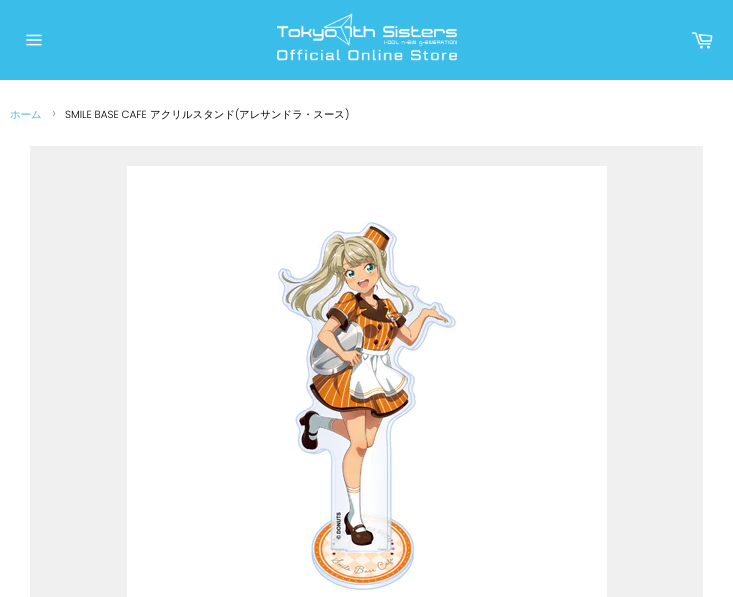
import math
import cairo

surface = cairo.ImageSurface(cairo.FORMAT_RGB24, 733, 597)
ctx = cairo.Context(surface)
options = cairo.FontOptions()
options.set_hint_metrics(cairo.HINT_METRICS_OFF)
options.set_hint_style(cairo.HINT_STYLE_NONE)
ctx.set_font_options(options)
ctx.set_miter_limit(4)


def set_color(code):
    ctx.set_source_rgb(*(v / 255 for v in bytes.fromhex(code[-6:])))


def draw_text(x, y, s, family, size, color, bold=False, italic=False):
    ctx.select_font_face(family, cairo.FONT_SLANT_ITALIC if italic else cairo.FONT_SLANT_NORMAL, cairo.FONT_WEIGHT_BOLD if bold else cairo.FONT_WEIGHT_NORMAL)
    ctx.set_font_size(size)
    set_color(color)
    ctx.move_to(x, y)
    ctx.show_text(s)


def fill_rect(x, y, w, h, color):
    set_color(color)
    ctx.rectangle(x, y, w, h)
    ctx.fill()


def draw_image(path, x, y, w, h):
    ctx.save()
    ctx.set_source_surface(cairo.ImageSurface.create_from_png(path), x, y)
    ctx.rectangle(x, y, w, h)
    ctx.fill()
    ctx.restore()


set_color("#ffffff")
ctx.paint()
fill_rect(0, 0, 733, 80, "#3abde8")
draw_image("assets/img1.png", 26, 34, 16, 12)
draw_image("assets/img2.png", 277, 13, 180, 48)
draw_image("assets/img3.png", 691, 32, 22, 17)
draw_text(10, 118, "ホーム", "WenQuanYi Zen Hei Medium", 10.4, "#3abde8")
draw_text(52, 118, "›", "Poppins Light", 15, "#999999")
draw_text(65, 118, "SMILE BASE CAFE", "Poppins Light", 10.4, "#000000")
draw_text(150, 118, "アクリルスタンド", "WenQuanYi Zen Hei Medium", 10.4, "#000000")
draw_text(235, 118, "(", "Poppins Light", 10.4, "#000000")
draw_text(239, 118, "アレサンドラ・スース", "WenQuanYi Zen Hei Medium", 10.4, "#000000")
draw_text(345, 118, ")", "Poppins Light", 10.4, "#000000")
fill_rect(30, 146, 673, 451, "#f0f0f0")
draw_image("assets/img4.png", 127, 166, 480, 431)
surface.write_to_png("output.png")
